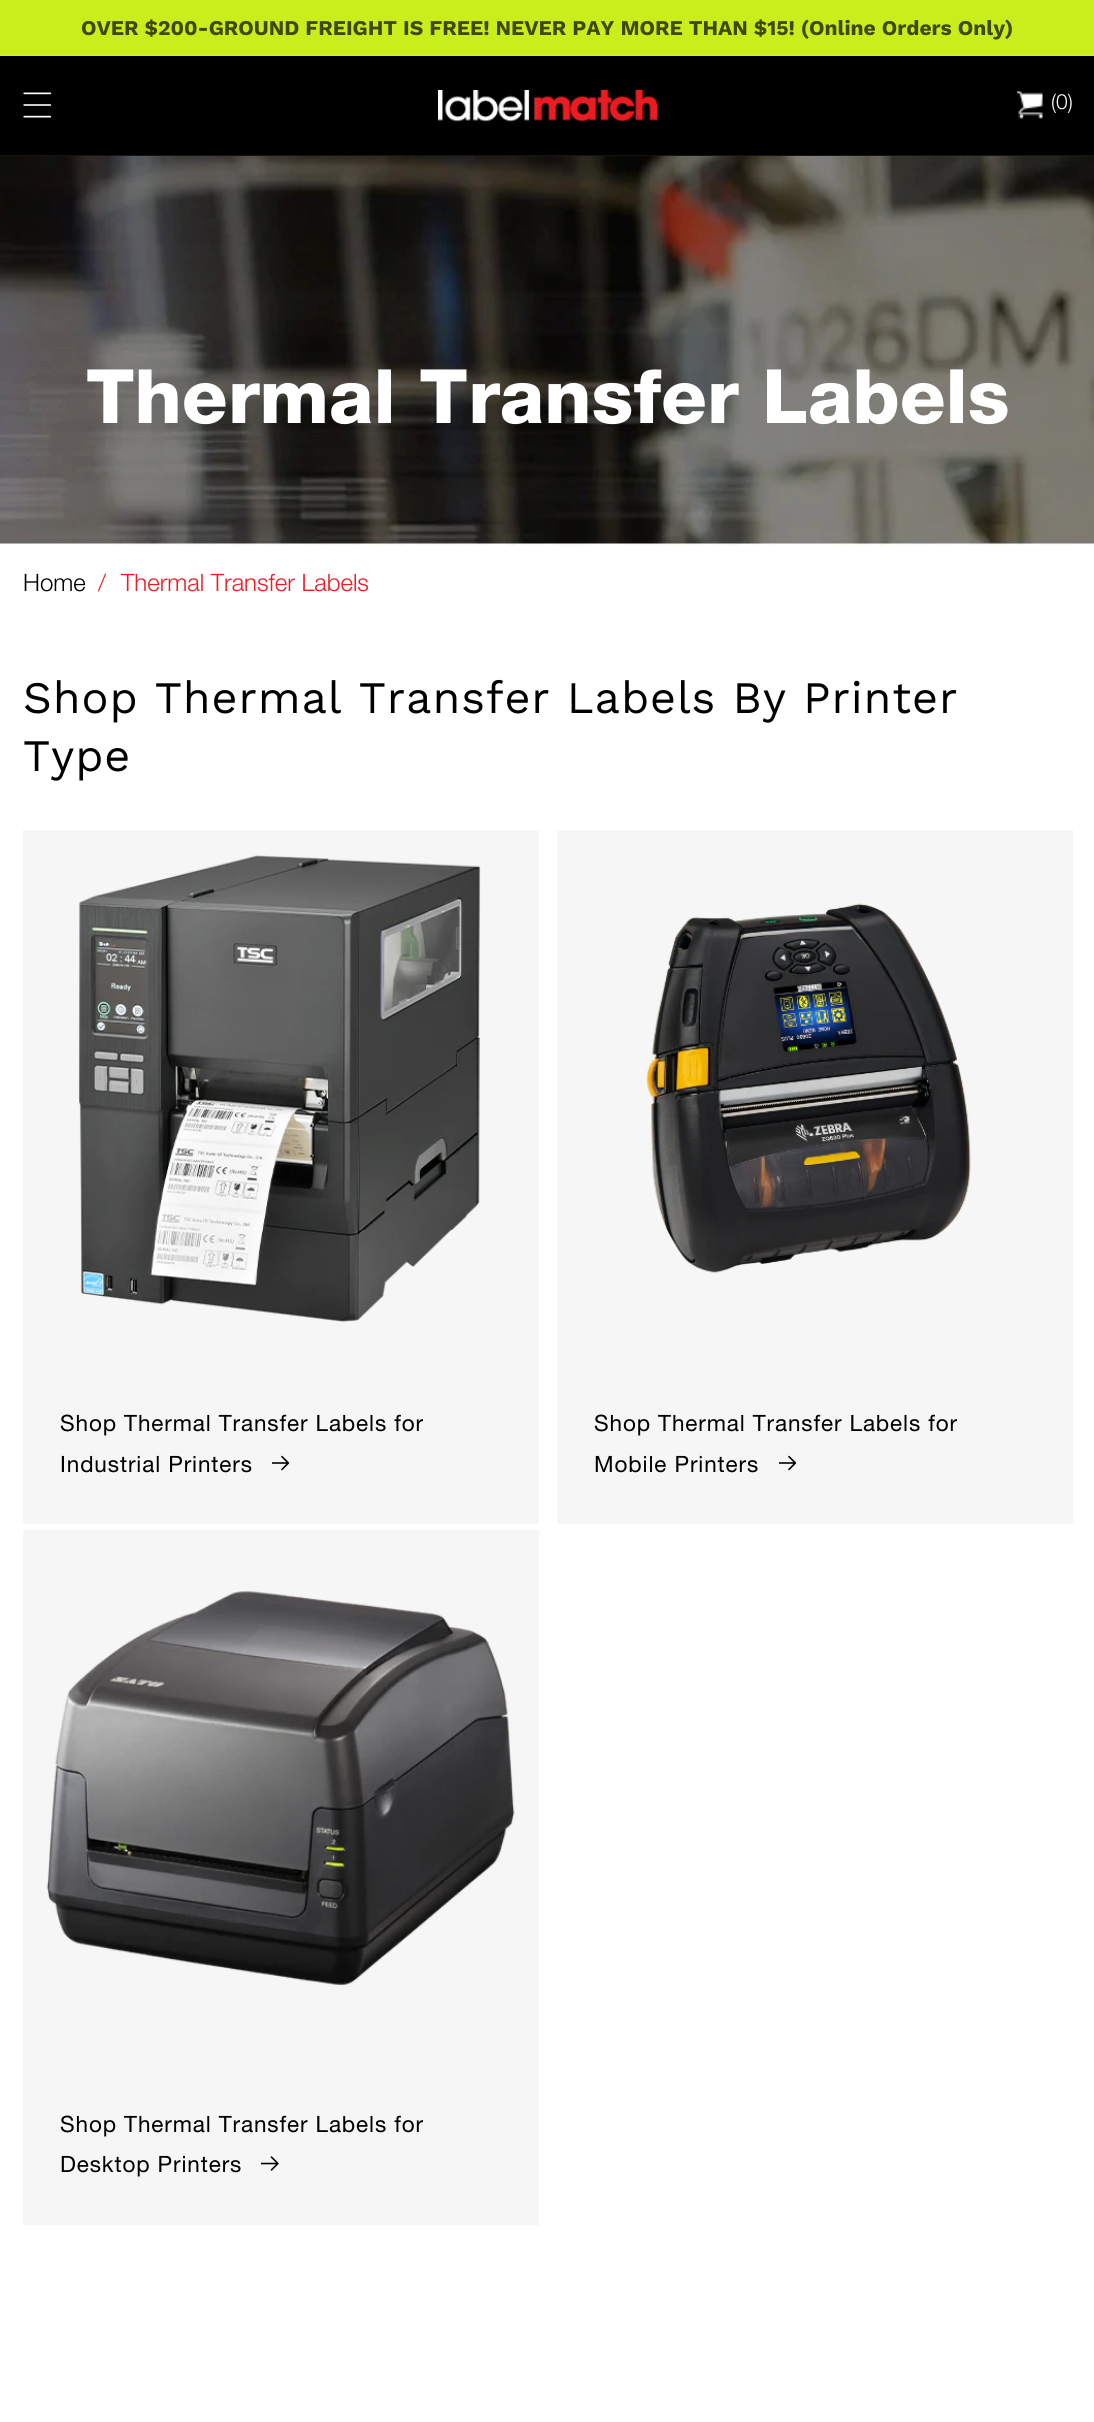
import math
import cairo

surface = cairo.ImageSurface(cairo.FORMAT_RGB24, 1094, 2422)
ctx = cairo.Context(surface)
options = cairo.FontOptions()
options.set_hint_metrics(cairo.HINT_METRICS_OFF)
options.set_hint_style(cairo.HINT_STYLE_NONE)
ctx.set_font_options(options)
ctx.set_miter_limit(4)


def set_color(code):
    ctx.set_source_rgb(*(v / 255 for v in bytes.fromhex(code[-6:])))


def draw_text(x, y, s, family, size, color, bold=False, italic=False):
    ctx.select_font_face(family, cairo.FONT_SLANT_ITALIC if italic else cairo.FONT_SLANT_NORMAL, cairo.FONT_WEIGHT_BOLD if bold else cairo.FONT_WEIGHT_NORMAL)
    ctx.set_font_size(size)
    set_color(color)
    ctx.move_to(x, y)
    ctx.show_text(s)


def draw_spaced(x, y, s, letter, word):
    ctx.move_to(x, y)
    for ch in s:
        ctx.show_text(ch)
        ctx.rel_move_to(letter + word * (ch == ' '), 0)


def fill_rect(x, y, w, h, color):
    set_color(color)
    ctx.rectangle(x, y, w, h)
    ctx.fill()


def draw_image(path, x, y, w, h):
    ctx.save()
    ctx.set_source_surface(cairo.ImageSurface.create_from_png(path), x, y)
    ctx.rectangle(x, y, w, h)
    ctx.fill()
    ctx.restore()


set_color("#ffffff")
ctx.paint()
fill_rect(0, 0, 1094, 54, "#caed1c")
fill_rect(0, 54, 1094, 2, "#ceee2e")
draw_text(81, 35, "OVER $200-GROUND FREIGHT IS FREE! NEVER PAY MORE THAN $15! (Online Orders Only)", "Work Sans", 21, "#3f4909", bold=True)
fill_rect(0, 56, 1094, 99, "#000000")
fill_rect(0, 155, 1094, 1, "#141414")
draw_image("assets/img1.png", 23, 92, 29, 26)
draw_image("assets/img2.png", 438, 90, 219, 32)
draw_image("assets/img3.png", 1017, 91, 26, 28)
draw_text(1051, 109, "(0)", "Helvetica Neue Light", 21, "#ffffff")
draw_image("assets/img4.png", 0, 156, 1094, 390)
draw_text(86, 423, "Thermal Transfer Labels", "Helvetica Neue", 75, "#ffffff", bold=True)
draw_text(23, 591, "Home", "Helvetica Neue Light", 24, "#000000")
draw_text(98, 591, "/", "Helvetica Neue Light", 24, "#ed1c24")
draw_text(121, 591, "Thermal Transfer Labels", "Helvetica Neue Light", 24, "#ed1c24")
ctx.select_font_face("Work Sans")
ctx.set_font_size(45)
set_color("#000000")
draw_spaced(23, 713, "Shop Thermal Transfer Labels By Printer", 0.9, 0)
draw_spaced(23, 771, "Type", 0.9, 0)
fill_rect(23, 830, 516, 694, "#f6f6f6")
draw_image("assets/img5.png", 78, 855, 403, 467)
ctx.select_font_face("Helvetica Neue")
ctx.set_font_size(22.5)
set_color("#000000")
draw_spaced(60, 1431, "Shop Thermal Transfer Labels for", 0.9, 0)
draw_spaced(60, 1472, "Industrial Printers", 0.9, 0)
draw_image("assets/img6.png", 272, 1455, 18, 16)
fill_rect(557, 830, 516, 694, "#f6f6f6")
draw_image("assets/img7.png", 646, 903, 325, 370)
set_color("#000000")
draw_spaced(594, 1431, "Shop Thermal Transfer Labels for", 0.9, 0)
draw_spaced(594, 1472, "Mobile Printers", 0.9, 0)
draw_image("assets/img6.png", 779, 1455, 18, 16)
fill_rect(23, 1530, 516, 695, "#f6f6f6")
draw_image("assets/img8.png", 46, 1591, 469, 395)
set_color("#000000")
draw_spaced(60, 2132, "Shop Thermal Transfer Labels for", 0.9, 0)
draw_spaced(60, 2172, "Desktop Printers", 0.9, 0)
draw_image("assets/img9.png", 261, 2156, 18, 15)
surface.write_to_png("output.png")
